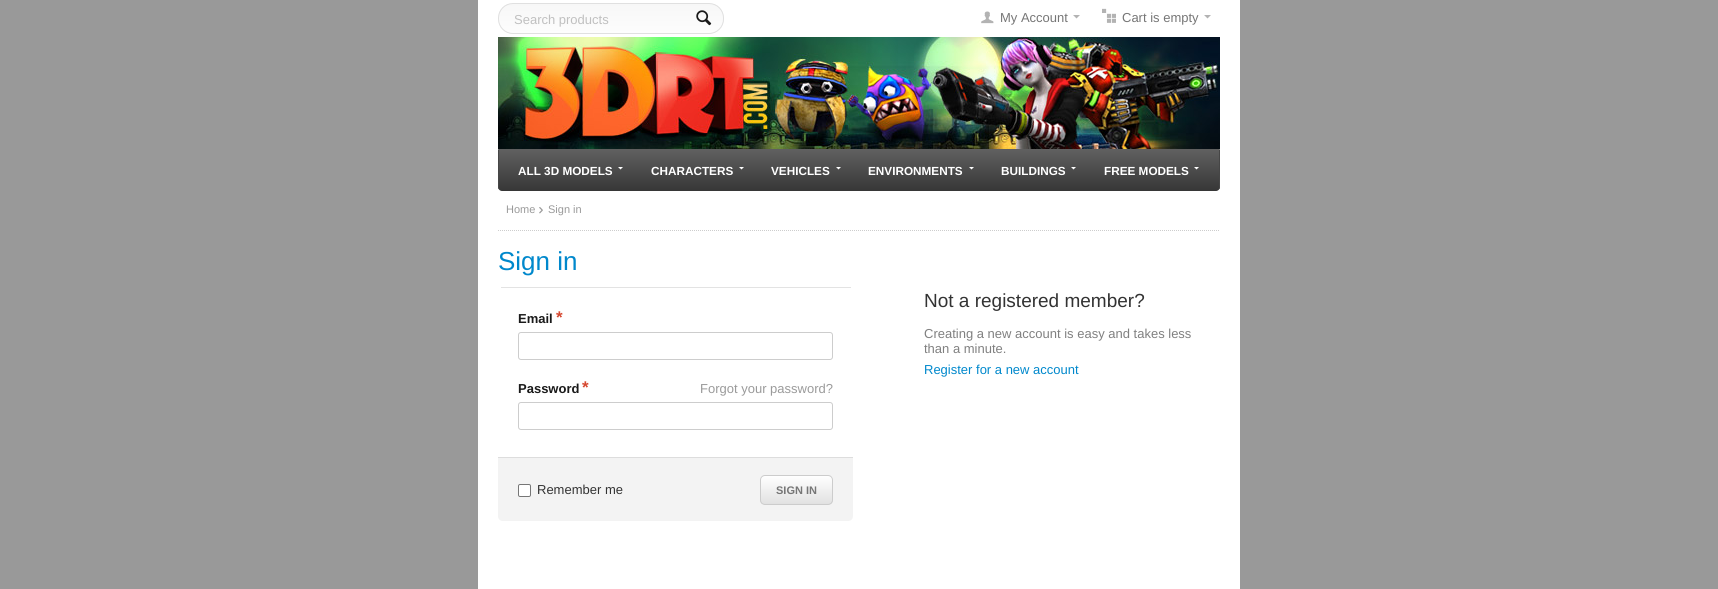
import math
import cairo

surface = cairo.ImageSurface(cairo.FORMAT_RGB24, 1718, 589)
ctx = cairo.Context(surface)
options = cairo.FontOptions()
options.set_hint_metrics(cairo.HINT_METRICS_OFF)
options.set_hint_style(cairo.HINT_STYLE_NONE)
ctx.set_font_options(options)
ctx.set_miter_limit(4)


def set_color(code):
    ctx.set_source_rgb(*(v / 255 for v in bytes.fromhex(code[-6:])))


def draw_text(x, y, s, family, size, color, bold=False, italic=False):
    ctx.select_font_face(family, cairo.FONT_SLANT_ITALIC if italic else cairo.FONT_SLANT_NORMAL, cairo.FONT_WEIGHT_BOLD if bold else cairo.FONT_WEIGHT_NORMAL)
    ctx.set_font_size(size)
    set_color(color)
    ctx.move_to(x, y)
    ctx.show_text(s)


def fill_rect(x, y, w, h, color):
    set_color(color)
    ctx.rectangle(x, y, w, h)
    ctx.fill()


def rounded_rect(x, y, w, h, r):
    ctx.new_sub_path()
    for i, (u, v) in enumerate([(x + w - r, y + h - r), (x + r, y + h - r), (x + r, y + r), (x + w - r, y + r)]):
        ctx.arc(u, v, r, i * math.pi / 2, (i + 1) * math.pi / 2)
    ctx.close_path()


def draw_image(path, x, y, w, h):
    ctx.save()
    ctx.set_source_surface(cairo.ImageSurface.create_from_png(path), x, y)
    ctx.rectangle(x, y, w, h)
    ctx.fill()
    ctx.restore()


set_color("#999999")
ctx.paint()
fill_rect(478, 0, 762, 589, "#ffffff")
ctx.save()
rounded_rect(498, 3, 226, 31, 15)
ctx.clip()
gradient = cairo.LinearGradient(611, 4, 611, 33)
gradient.add_color_stop_rgba(0, 0.969, 0.969, 0.969, 1)
gradient.add_color_stop_rgba(1, 0.992, 0.992, 0.992, 1)
ctx.set_source(gradient)
ctx.rectangle(498, 4, 226, 29)
ctx.fill()
ctx.restore()
rounded_rect(498.5, 3.5, 225, 30, 14.5)
set_color("#e0e0e0")
ctx.set_line_width(1)
ctx.stroke()
draw_text(514, 24, "Search products", "Liberation Sans", 13, "#c0c0c0")
draw_image("assets/img1.png", 696, 10, 16, 16)
draw_image("assets/img2.png", 981, 11, 13, 13)
draw_text(1000, 22, "My Account", "Liberation Sans", 13, "#767676")
set_color("#b3b3b3")
ctx.new_path()
ctx.move_to(1076.5, 18.5)
ctx.line_to(1073, 15)
ctx.line_to(1080, 15)
ctx.close_path()
ctx.fill()
draw_image("assets/img3.png", 1102, 8, 14, 15)
draw_text(1122, 22, "Cart is empty", "Liberation Sans", 13, "#767676")
set_color("#b3b3b3")
ctx.new_path()
ctx.move_to(1207.5, 18.5)
ctx.line_to(1204, 15)
ctx.line_to(1211, 15)
ctx.close_path()
ctx.fill()
draw_image("assets/img4.png", 498, 37, 722, 112)
gradient = cairo.LinearGradient(859, 150, 859, 191)
gradient.add_color_stop_rgba(0, 0.373, 0.373, 0.373, 1)
gradient.add_color_stop_rgba(1, 0.212, 0.212, 0.212, 1)
ctx.set_source(gradient)
ctx.new_path()
ctx.move_to(498, 150)
ctx.line_to(1220, 150)
ctx.line_to(1220, 187)
ctx.curve_to(1220, 189, 1218, 191, 1216, 191)
ctx.line_to(502, 191)
ctx.curve_to(500, 191, 498, 189, 498, 187)
ctx.close_path()
ctx.fill()
set_color("#5f5f5f")
ctx.new_path()
ctx.move_to(498, 149)
ctx.line_to(499, 150)
ctx.line_to(1219, 150)
ctx.line_to(1220, 149)
ctx.close_path()
ctx.fill()
set_color("#464646")
ctx.new_path()
ctx.move_to(1220, 149)
ctx.line_to(1219, 150)
ctx.line_to(1219, 187)
ctx.curve_to(1219, 189, 1218, 191, 1216, 191)
ctx.curve_to(1218, 191, 1220, 189, 1220, 187)
ctx.close_path()
ctx.fill()
ctx.new_path()
ctx.move_to(499, 150)
ctx.line_to(498, 149)
ctx.line_to(498, 187)
ctx.curve_to(498, 189, 500, 191, 502, 191)
ctx.curve_to(500, 191, 499, 189, 499, 187)
ctx.close_path()
ctx.fill()
draw_text(518, 175, "ALL 3D MODELS", "Liberation Sans", 11.75, "#ffffff", bold=True)
ctx.new_path()
ctx.move_to(620.5, 169.5)
ctx.line_to(618, 167)
ctx.line_to(623, 167)
ctx.close_path()
ctx.fill()
draw_text(651, 175, "CHARACTERS", "Liberation Sans", 11.75, "#ffffff", bold=True)
ctx.new_path()
ctx.move_to(741.5, 169.5)
ctx.line_to(739, 167)
ctx.line_to(744, 167)
ctx.close_path()
ctx.fill()
draw_text(771, 175, "VEHICLES", "Liberation Sans", 11.75, "#ffffff", bold=True)
ctx.new_path()
ctx.move_to(838.5, 169.5)
ctx.line_to(836, 167)
ctx.line_to(841, 167)
ctx.close_path()
ctx.fill()
draw_text(868, 175, "ENVIRONMENTS", "Liberation Sans", 11.75, "#ffffff", bold=True)
ctx.new_path()
ctx.move_to(971.5, 169.5)
ctx.line_to(969, 167)
ctx.line_to(974, 167)
ctx.close_path()
ctx.fill()
draw_text(1001, 175, "BUILDINGS", "Liberation Sans", 11.75, "#ffffff", bold=True)
ctx.new_path()
ctx.move_to(1073.5, 169.5)
ctx.line_to(1071, 167)
ctx.line_to(1076, 167)
ctx.close_path()
ctx.fill()
draw_text(1104, 175, "FREE MODELS", "Liberation Sans", 11.75, "#ffffff", bold=True)
ctx.new_path()
ctx.move_to(1196.5, 169.5)
ctx.line_to(1194, 167)
ctx.line_to(1199, 167)
ctx.close_path()
ctx.fill()
ctx.new_path()
ctx.move_to(498, 230.5)
ctx.line_to(1220, 230.5)
set_color("#cdcdcd")
ctx.set_dash([1, 1])
ctx.stroke()
draw_text(506, 213, "Home", "Liberation Sans", 11, "#9a9a9a")
draw_image("assets/img5.png", 539, 207, 4, 7)
draw_text(548, 213, "Sign in", "Liberation Sans", 11, "#9a9a9a")
draw_text(498, 270, "Sign in", "Liberation Sans", 26, "#0088cc")
fill_rect(501, 287, 350, 1, "#e3e3e3")
draw_text(518, 323, "Email", "Liberation Sans", 13, "#1a1a1a", bold=True)
draw_text(556, 323, "*", "Liberation Sans", 17, "#d64830", bold=True)
rounded_rect(518.5, 332.5, 314, 27, 2.5)
set_color("#cdcdcd")
ctx.set_dash([])
ctx.stroke()
draw_text(518, 393, "Password", "Liberation Sans", 13, "#1a1a1a", bold=True)
draw_text(582, 393, "*", "Liberation Sans", 17, "#d64830", bold=True)
draw_text(700, 393, "Forgot your password?", "Liberation Sans", 13, "#9a9a9a")
rounded_rect(518.5, 402.5, 314, 27, 2.5)
set_color("#cdcdcd")
ctx.stroke()
set_color("#f3f3f3")
ctx.new_path()
ctx.move_to(498, 457)
ctx.line_to(853, 457)
ctx.line_to(853, 516)
ctx.curve_to(853, 519, 851, 521, 848, 521)
ctx.line_to(503, 521)
ctx.curve_to(500, 521, 498, 519, 498, 516)
ctx.close_path()
ctx.fill()
fill_rect(498, 457, 355, 1, "#dddddd")
set_color("#ffffff")
rounded_rect(518.5, 484.5, 12, 12, 1.5)
ctx.fill_preserve()
set_color("#767676")
ctx.stroke()
draw_text(537, 494, "Remember me", "Liberation Sans", 13, "#333333")
ctx.save()
rounded_rect(760, 475, 73, 30, 5)
ctx.clip()
gradient = cairo.LinearGradient(797, 476, 797, 504)
gradient.add_color_stop_rgba(0, 1, 1, 1, 1)
gradient.add_color_stop_rgba(1, 0.882, 0.882, 0.882, 1)
ctx.set_source(gradient)
ctx.rectangle(760, 476, 73, 28)
ctx.fill()
ctx.restore()
ctx.set_source_rgba(1, 1, 1, 0.45)
ctx.new_path()
ctx.move_to(765, 477)
ctx.line_to(828, 477)
ctx.curve_to(830, 477, 832, 479, 832, 481)
ctx.curve_to(832, 473, 823, 476, 818, 476)
ctx.line_to(776, 476)
ctx.curve_to(770, 476, 761, 473, 761, 481)
ctx.curve_to(761, 479, 763, 477, 765, 477)
ctx.close_path()
ctx.fill()
rounded_rect(760.5, 475.5, 72, 29, 4.5)
set_color("#cccccc")
ctx.stroke()
draw_text(776, 494, "SIGN IN", "Liberation Sans", 11, "#767676", bold=True)
draw_text(924, 307, "Not a registered member?", "Liberation Sans", 19, "#333333")
draw_text(924, 338, "Creating a new account is easy and takes less", "Liberation Sans", 13, "#808080")
draw_text(924, 353, "than a minute.", "Liberation Sans", 13, "#808080")
draw_text(924, 374, "Register for a new account", "Liberation Sans", 13, "#0088cc")
surface.write_to_png("output.png")
